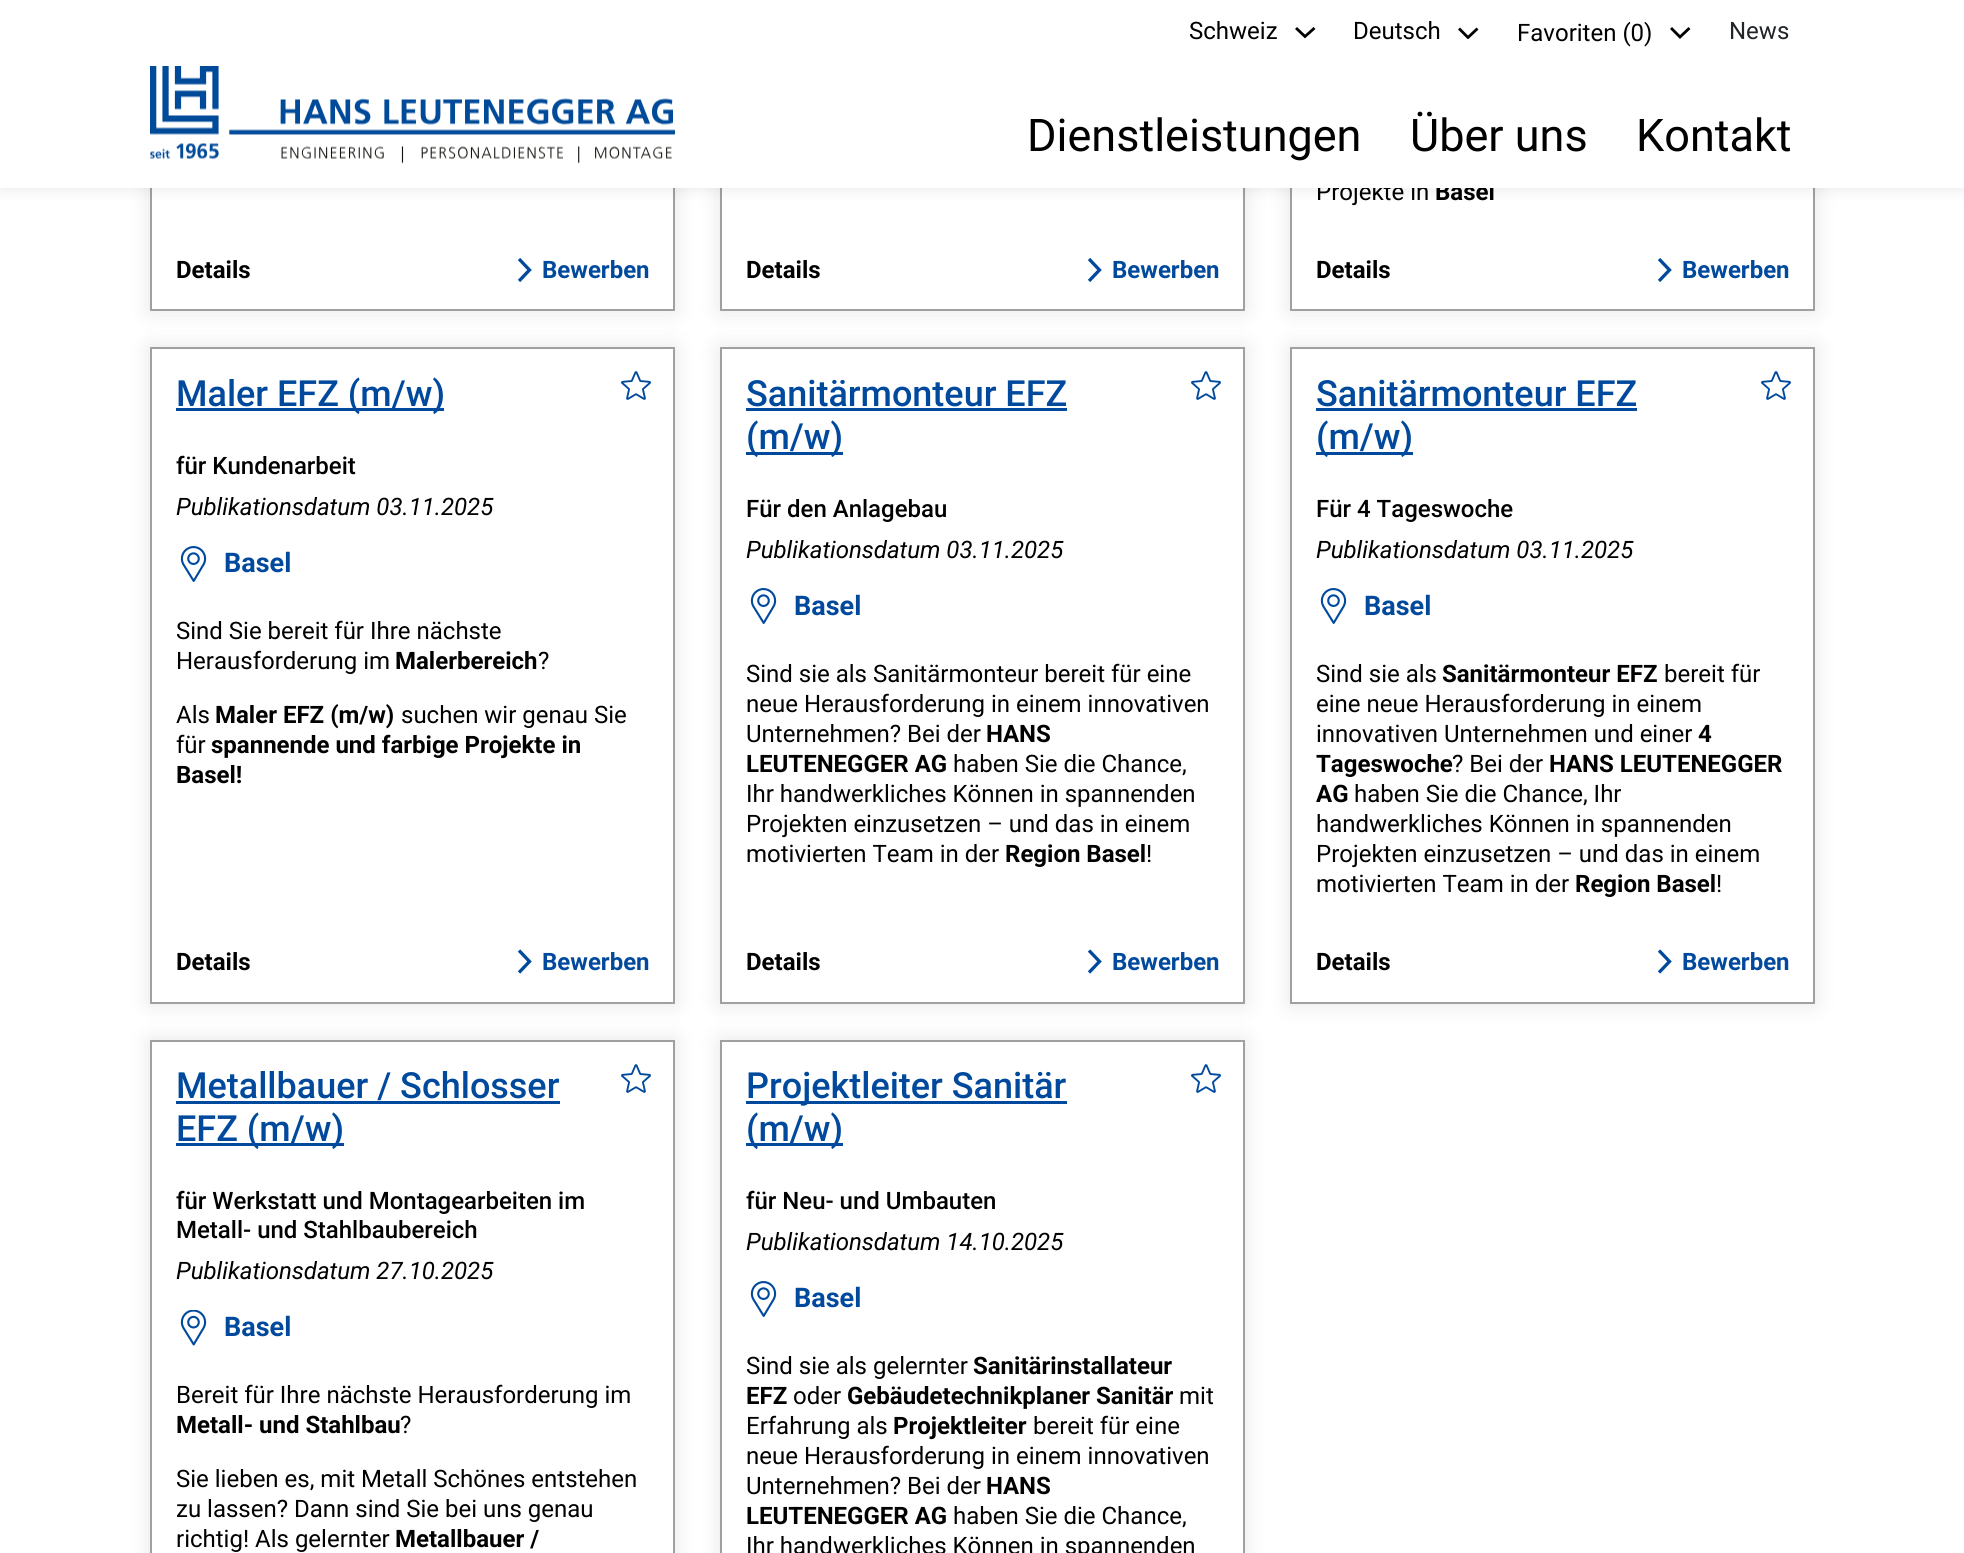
import math
import cairo

surface = cairo.ImageSurface(cairo.FORMAT_RGB24, 1964, 1553)
ctx = cairo.Context(surface)
options = cairo.FontOptions()
options.set_hint_metrics(cairo.HINT_METRICS_OFF)
options.set_hint_style(cairo.HINT_STYLE_NONE)
ctx.set_font_options(options)
ctx.set_miter_limit(4)


def set_color(code):
    ctx.set_source_rgb(*(v / 255 for v in bytes.fromhex(code[-6:])))


def draw_text(x, y, s, family, size, color, bold=False, italic=False):
    ctx.select_font_face(family, cairo.FONT_SLANT_ITALIC if italic else cairo.FONT_SLANT_NORMAL, cairo.FONT_WEIGHT_BOLD if bold else cairo.FONT_WEIGHT_NORMAL)
    ctx.set_font_size(size)
    set_color(color)
    ctx.move_to(x, y)
    ctx.show_text(s)


def fill_rect(x, y, w, h, color):
    set_color(color)
    ctx.rectangle(x, y, w, h)
    ctx.fill()


def rounded_rect(x, y, w, h, r):
    ctx.new_sub_path()
    for i, (u, v) in enumerate([(x + w - r, y + h - r), (x + r, y + h - r), (x + r, y + r), (x + w - r, y + r)]):
        ctx.arc(u, v, r, i * math.pi / 2, (i + 1) * math.pi / 2)
    ctx.close_path()


def draw_shadow(x, y, w, h, r, blur, alpha):
    ctx.push_group_with_content(cairo.CONTENT_ALPHA)
    ctx.set_operator(cairo.OPERATOR_SOURCE)
    for i in range(15, -16, -2):
        e = blur * i / 6
        if min(w, h) + 2 * e > 0:
            ctx.set_source_rgba(0, 0, 0, alpha * math.erfc((i - 1) / 8.5) / 2)
            rounded_rect(x - e, y - e, w + 2 * e, h + 2 * e, max(0, min(r + e + blur * .6, min(w, h) / 2 + e)))
            ctx.fill()
    ctx.mask(ctx.pop_group())


def draw_image(path, x, y, w, h):
    ctx.save()
    ctx.set_source_surface(cairo.ImageSurface.create_from_png(path), x, y)
    ctx.rectangle(x, y, w, h)
    ctx.fill()
    ctx.restore()


set_color("#ffffff")
ctx.paint()
set_color("#000000")
draw_shadow(150, -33, 525, 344, 0, 11, 0.1)
fill_rect(152, 188, 521, 121, "#ffffff")
ctx.rectangle(151, -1, 523, 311)
set_color("#a0a0a0")
ctx.stroke()
set_color("#000000")
draw_shadow(720, -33, 525, 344, 0, 11, 0.1)
fill_rect(722, 188, 521, 121, "#ffffff")
ctx.rectangle(721, -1, 523, 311)
set_color("#a0a0a0")
ctx.stroke()
set_color("#000000")
draw_shadow(1290, -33, 525, 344, 0, 11, 0.1)
fill_rect(1292, 188, 521, 121, "#ffffff")
ctx.rectangle(1291, -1, 523, 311)
set_color("#a0a0a0")
ctx.stroke()
set_color("#000000")
draw_shadow(0, 0, 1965, 188, 0, 7.5, 0.1)
draw_text(1316, 200, "Projekte in", "Roboto", 24, "#000000")
draw_text(1435, 200, "Basel", "Roboto", 24, "#000000", bold=True)
fill_rect(0, 0, 1964, 188, "#ffffff")
draw_text(1189, 39, "Schweiz", "Roboto", 24, "#000000")
ctx.new_path()
ctx.move_to(1314.5, 28)
ctx.line_to(1305, 36.5)
ctx.line_to(1296, 28)
ctx.set_line_width(2.8)
ctx.stroke()
draw_text(1353, 39, "Deutsch", "Roboto", 24, "#000000")
ctx.save()
ctx.new_path()
ctx.move_to(1478.5, 27)
ctx.line_to(1478.5, 39)
ctx.line_to(1458, 39)
ctx.line_to(1458, 27)
ctx.close_path()
ctx.clip()
ctx.new_path()
ctx.move_to(1477.5, 28.5)
ctx.line_to(1468, 37.5)
ctx.line_to(1459, 28.5)
ctx.stroke()
ctx.restore()
draw_text(1517, 41, "Favoriten (0)", "Roboto", 24, "#000000")
ctx.new_path()
ctx.move_to(1689.5, 28)
ctx.line_to(1680, 37)
ctx.line_to(1671, 28)
ctx.stroke()
draw_text(1729, 39, "News", "Roboto", 24, "#212529")
draw_image("assets/img1.png", 150, 66, 525, 98)
draw_text(1027, 151, "Dienstleistungen", "Roboto", 45, "#000000")
draw_text(1410, 151, "Über uns", "Roboto", 45, "#000000")
draw_text(1636, 151, "Kontakt", "Roboto", 45, "#000000")
draw_text(176, 278, "Details", "Roboto", 24, "#000000", bold=True)
ctx.new_path()
ctx.move_to(519, 259)
ctx.line_to(529.5, 270)
ctx.line_to(519, 281)
set_color("#00499d")
ctx.set_line_width(3.3)
ctx.stroke()
draw_text(542, 278, "Bewerben", "Roboto", 24, "#00499d", bold=True)
draw_text(746, 278, "Details", "Roboto", 24, "#000000", bold=True)
ctx.new_path()
ctx.move_to(1089, 259)
ctx.line_to(1099.5, 270)
ctx.line_to(1089, 281)
set_color("#00499d")
ctx.stroke()
draw_text(1112, 278, "Bewerben", "Roboto", 24, "#00499d", bold=True)
draw_text(1316, 278, "Details", "Roboto", 24, "#000000", bold=True)
ctx.new_path()
ctx.move_to(1659, 259)
ctx.line_to(1669.5, 270)
ctx.line_to(1659, 281)
set_color("#00499d")
ctx.stroke()
draw_text(1682, 278, "Bewerben", "Roboto", 24, "#00499d", bold=True)
set_color("#000000")
draw_shadow(150, 347, 525, 657, 0, 11, 0.1)
set_color("#ffffff")
ctx.rectangle(151, 348, 523, 655)
ctx.fill_preserve()
set_color("#a0a0a0")
ctx.set_line_width(2)
ctx.stroke()
fill_rect(176, 408, 268, 3, "#00499d")
draw_text(176, 406, "Maler EFZ (m/w)", "Roboto Medium", 36, "#00499d")
draw_image("assets/img2.png", 621, 371, 30, 29)
draw_text(176, 474, "für Kundenarbeit", "Roboto Medium", 24, "#000000")
draw_text(176, 515, "Publikationsdatum 03.11.2025", "Roboto", 24, "#000000", italic=True)
draw_image("assets/img3.png", 180, 546, 27, 36)
draw_text(224, 572, "Basel", "Roboto", 27, "#00499d", bold=True)
draw_text(176, 639, "Sind Sie bereit für Ihre nächste", "Roboto", 24, "#000000")
draw_text(176, 669, "Herausforderung im", "Roboto", 24, "#000000")
draw_text(395, 669, "Malerbereich", "Roboto", 24, "#000000", bold=True)
draw_text(538, 669, "?", "Roboto", 24, "#000000")
draw_text(176, 723, "Als", "Roboto", 24, "#000000")
draw_text(215, 723, "Maler EFZ (m/w)", "Roboto", 24, "#000000", bold=True)
draw_text(401, 723, "suchen wir genau Sie", "Roboto", 24, "#000000")
draw_text(176, 753, "für", "Roboto", 24, "#000000")
draw_text(211, 753, "spannende und farbige Projekte in", "Roboto", 24, "#000000", bold=True)
draw_text(176, 783, "Basel!", "Roboto", 24, "#000000", bold=True)
draw_text(176, 970, "Details", "Roboto", 24, "#000000", bold=True)
ctx.new_path()
ctx.move_to(519, 950.5)
ctx.line_to(529.5, 961.5)
ctx.line_to(519, 972.5)
set_color("#00499d")
ctx.set_line_width(3.3)
ctx.stroke()
draw_text(542, 970, "Bewerben", "Roboto", 24, "#00499d", bold=True)
set_color("#000000")
draw_shadow(720, 347, 525, 657, 0, 11, 0.1)
set_color("#ffffff")
ctx.rectangle(721, 348, 523, 655)
ctx.fill_preserve()
set_color("#a0a0a0")
ctx.set_line_width(2)
ctx.stroke()
draw_text(746, 406, "Sanitärmonteur EFZ", "Roboto Medium", 36, "#00499d")
fill_rect(746, 408, 321, 3, "#00499d")
fill_rect(746, 452, 97, 3, "#00499d")
draw_text(746, 449, "(m/w)", "Roboto Medium", 36, "#00499d")
draw_image("assets/img2.png", 1191, 371, 30, 29)
draw_text(746, 517, "Für den Anlagebau", "Roboto Medium", 24, "#000000")
draw_text(746, 558, "Publikationsdatum 03.11.2025", "Roboto", 24, "#000000", italic=True)
draw_image("assets/img3.png", 750, 588, 27, 36)
draw_text(794, 615, "Basel", "Roboto", 27, "#00499d", bold=True)
draw_text(746, 682, "Sind sie als Sanitärmonteur bereit für eine", "Roboto", 24, "#000000")
draw_text(746, 712, "neue Herausforderung in einem innovativen", "Roboto", 24, "#000000")
draw_text(746, 742, "Unternehmen? Bei der", "Roboto", 24, "#000000")
draw_text(986, 742, "HANS", "Roboto", 24, "#000000", bold=True)
draw_text(746, 772, "LEUTENEGGER AG", "Roboto", 24, "#000000", bold=True)
draw_text(953, 772, "haben Sie die Chance,", "Roboto", 24, "#000000")
draw_text(746, 802, "Ihr handwerkliches Können in spannenden", "Roboto", 24, "#000000")
draw_text(746, 832, "Projekten einzusetzen – und das in einem", "Roboto", 24, "#000000")
draw_text(746, 862, "motivierten Team in der", "Roboto", 24, "#000000")
draw_text(1005, 862, "Region Basel", "Roboto", 24, "#000000", bold=True)
draw_text(1146, 862, "!", "Roboto", 24, "#000000")
draw_text(746, 970, "Details", "Roboto", 24, "#000000", bold=True)
ctx.new_path()
ctx.move_to(1089, 950.5)
ctx.line_to(1099.5, 961.5)
ctx.line_to(1089, 972.5)
set_color("#00499d")
ctx.set_line_width(3.3)
ctx.stroke()
draw_text(1112, 970, "Bewerben", "Roboto", 24, "#00499d", bold=True)
set_color("#000000")
draw_shadow(1290, 347, 525, 657, 0, 11, 0.1)
set_color("#ffffff")
ctx.rectangle(1291, 348, 523, 655)
ctx.fill_preserve()
set_color("#a0a0a0")
ctx.set_line_width(2)
ctx.stroke()
draw_text(1316, 406, "Sanitärmonteur EFZ", "Roboto Medium", 36, "#00499d")
fill_rect(1316, 408, 321, 3, "#00499d")
fill_rect(1316, 452, 97, 3, "#00499d")
draw_text(1316, 449, "(m/w)", "Roboto Medium", 36, "#00499d")
draw_image("assets/img2.png", 1761, 371, 30, 29)
draw_text(1316, 517, "Für 4 Tageswoche", "Roboto Medium", 24, "#000000")
draw_text(1316, 558, "Publikationsdatum 03.11.2025", "Roboto", 24, "#000000", italic=True)
draw_image("assets/img3.png", 1320, 588, 27, 36)
draw_text(1364, 615, "Basel", "Roboto", 27, "#00499d", bold=True)
draw_text(1316, 682, "Sind sie als", "Roboto", 24, "#000000")
draw_text(1442, 682, "Sanitärmonteur EFZ", "Roboto", 24, "#000000", bold=True)
draw_text(1664, 682, "bereit für", "Roboto", 24, "#000000")
draw_text(1316, 712, "eine neue Herausforderung in einem", "Roboto", 24, "#000000")
draw_text(1316, 742, "innovativen Unternehmen und einer", "Roboto", 24, "#000000")
draw_text(1698, 742, "4", "Roboto", 24, "#000000", bold=True)
draw_text(1316, 772, "Tageswoche", "Roboto", 24, "#000000", bold=True)
draw_text(1452, 772, "? Bei der", "Roboto", 24, "#000000")
draw_text(1549, 772, "HANS LEUTENEGGER", "Roboto", 24, "#000000", bold=True)
draw_text(1316, 802, "AG", "Roboto", 24, "#000000", bold=True)
draw_text(1354, 802, "haben Sie die Chance, Ihr", "Roboto", 24, "#000000")
draw_text(1316, 832, "handwerkliches Können in spannenden", "Roboto", 24, "#000000")
draw_text(1316, 862, "Projekten einzusetzen – und das in einem", "Roboto", 24, "#000000")
draw_text(1316, 892, "motivierten Team in der", "Roboto", 24, "#000000")
draw_text(1575, 892, "Region Basel", "Roboto", 24, "#000000", bold=True)
draw_text(1716, 892, "!", "Roboto", 24, "#000000")
draw_text(1316, 970, "Details", "Roboto", 24, "#000000", bold=True)
ctx.new_path()
ctx.move_to(1659, 950.5)
ctx.line_to(1669.5, 961.5)
ctx.line_to(1659, 972.5)
set_color("#00499d")
ctx.set_line_width(3.3)
ctx.stroke()
draw_text(1682, 970, "Bewerben", "Roboto", 24, "#00499d", bold=True)
ctx.save()
ctx.set_fill_rule(cairo.FILL_RULE_EVEN_ODD)
ctx.new_path()
ctx.move_to(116, 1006)
ctx.line_to(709, 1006)
ctx.line_to(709, 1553)
ctx.line_to(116, 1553)
ctx.close_path()
ctx.move_to(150, 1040)
ctx.line_to(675, 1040)
ctx.line_to(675, 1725)
ctx.line_to(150, 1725)
ctx.close_path()
ctx.clip()
set_color("#000000")
draw_shadow(150, 1040, 525, 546, 0, 11, 0.1)
ctx.restore()
ctx.rectangle(151, 1041, 523, 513)
set_color("#a0a0a0")
ctx.set_line_width(2)
ctx.stroke()
draw_text(176, 1098, "Metallbauer / Schlosser", "Roboto Medium", 36, "#00499d")
fill_rect(176, 1101, 384, 3, "#00499d")
fill_rect(176, 1143, 168, 3, "#00499d")
draw_text(176, 1141, "EFZ (m/w)", "Roboto Medium", 36, "#00499d")
draw_image("assets/img2.png", 621, 1064, 30, 29)
draw_text(176, 1209, "für Werkstatt und Montagearbeiten im", "Roboto Medium", 24, "#000000")
draw_text(176, 1238, "Metall- und Stahlbaubereich", "Roboto Medium", 24, "#000000")
draw_text(176, 1279, "Publikationsdatum 27.10.2025", "Roboto", 24, "#000000", italic=True)
draw_image("assets/img4.png", 180, 1310, 27, 36)
draw_text(224, 1336, "Basel", "Roboto", 27, "#00499d", bold=True)
draw_text(176, 1403, "Bereit für Ihre nächste Herausforderung im", "Roboto", 24, "#000000")
draw_text(176, 1433, "Metall- und Stahlbau", "Roboto", 24, "#000000", bold=True)
draw_text(400, 1433, "?", "Roboto", 24, "#000000")
draw_text(176, 1487, "Sie lieben es, mit Metall Schönes entstehen", "Roboto", 24, "#000000")
draw_text(176, 1517, "zu lassen? Dann sind Sie bei uns genau", "Roboto", 24, "#000000")
draw_text(176, 1547, "richtig! Als gelernter", "Roboto", 24, "#000000")
draw_text(395, 1547, "Metallbauer /", "Roboto", 24, "#000000", bold=True)
ctx.save()
ctx.set_fill_rule(cairo.FILL_RULE_EVEN_ODD)
ctx.new_path()
ctx.move_to(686, 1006)
ctx.line_to(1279, 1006)
ctx.line_to(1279, 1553)
ctx.line_to(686, 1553)
ctx.close_path()
ctx.move_to(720, 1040)
ctx.line_to(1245, 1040)
ctx.line_to(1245, 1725)
ctx.line_to(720, 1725)
ctx.close_path()
ctx.clip()
set_color("#000000")
draw_shadow(720, 1040, 525, 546, 0, 11, 0.1)
ctx.restore()
ctx.rectangle(721, 1041, 523, 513)
set_color("#a0a0a0")
ctx.stroke()
fill_rect(746, 1101, 321, 3, "#00499d")
draw_text(746, 1098, "Projektleiter Sanitär", "Roboto Medium", 36, "#00499d")
fill_rect(746, 1143, 97, 3, "#00499d")
draw_text(746, 1141, "(m/w)", "Roboto Medium", 36, "#00499d")
draw_image("assets/img2.png", 1191, 1064, 30, 29)
draw_text(746, 1209, "für Neu- und Umbauten", "Roboto Medium", 24, "#000000")
draw_text(746, 1250, "Publikationsdatum 14.10.2025", "Roboto", 24, "#000000", italic=True)
draw_image("assets/img3.png", 750, 1281, 27, 36)
draw_text(794, 1307, "Basel", "Roboto", 27, "#00499d", bold=True)
draw_text(746, 1374, "Sind sie als gelernter", "Roboto", 24, "#000000")
draw_text(973, 1374, "Sanitärinstallateur", "Roboto", 24, "#000000", bold=True)
draw_text(746, 1404, "EFZ", "Roboto", 24, "#000000", bold=True)
draw_text(793, 1404, "oder", "Roboto", 24, "#000000")
draw_text(847, 1404, "Gebäudetechnikplaner Sanitär", "Roboto", 24, "#000000", bold=True)
draw_text(1179, 1404, "mit", "Roboto", 24, "#000000")
draw_text(746, 1434, "Erfahrung als", "Roboto", 24, "#000000")
draw_text(893, 1434, "Projektleiter", "Roboto", 24, "#000000", bold=True)
draw_text(1033, 1434, "bereit für eine", "Roboto", 24, "#000000")
draw_text(746, 1464, "neue Herausforderung in einem innovativen", "Roboto", 24, "#000000")
draw_text(746, 1494, "Unternehmen? Bei der", "Roboto", 24, "#000000")
draw_text(986, 1494, "HANS", "Roboto", 24, "#000000", bold=True)
draw_text(746, 1524, "LEUTENEGGER AG", "Roboto", 24, "#000000", bold=True)
draw_text(953, 1524, "haben Sie die Chance,", "Roboto", 24, "#000000")
draw_text(746, 1554, "Ihr handwerkliches Können in spannenden", "Roboto", 24, "#000000")
surface.write_to_png("output.png")
